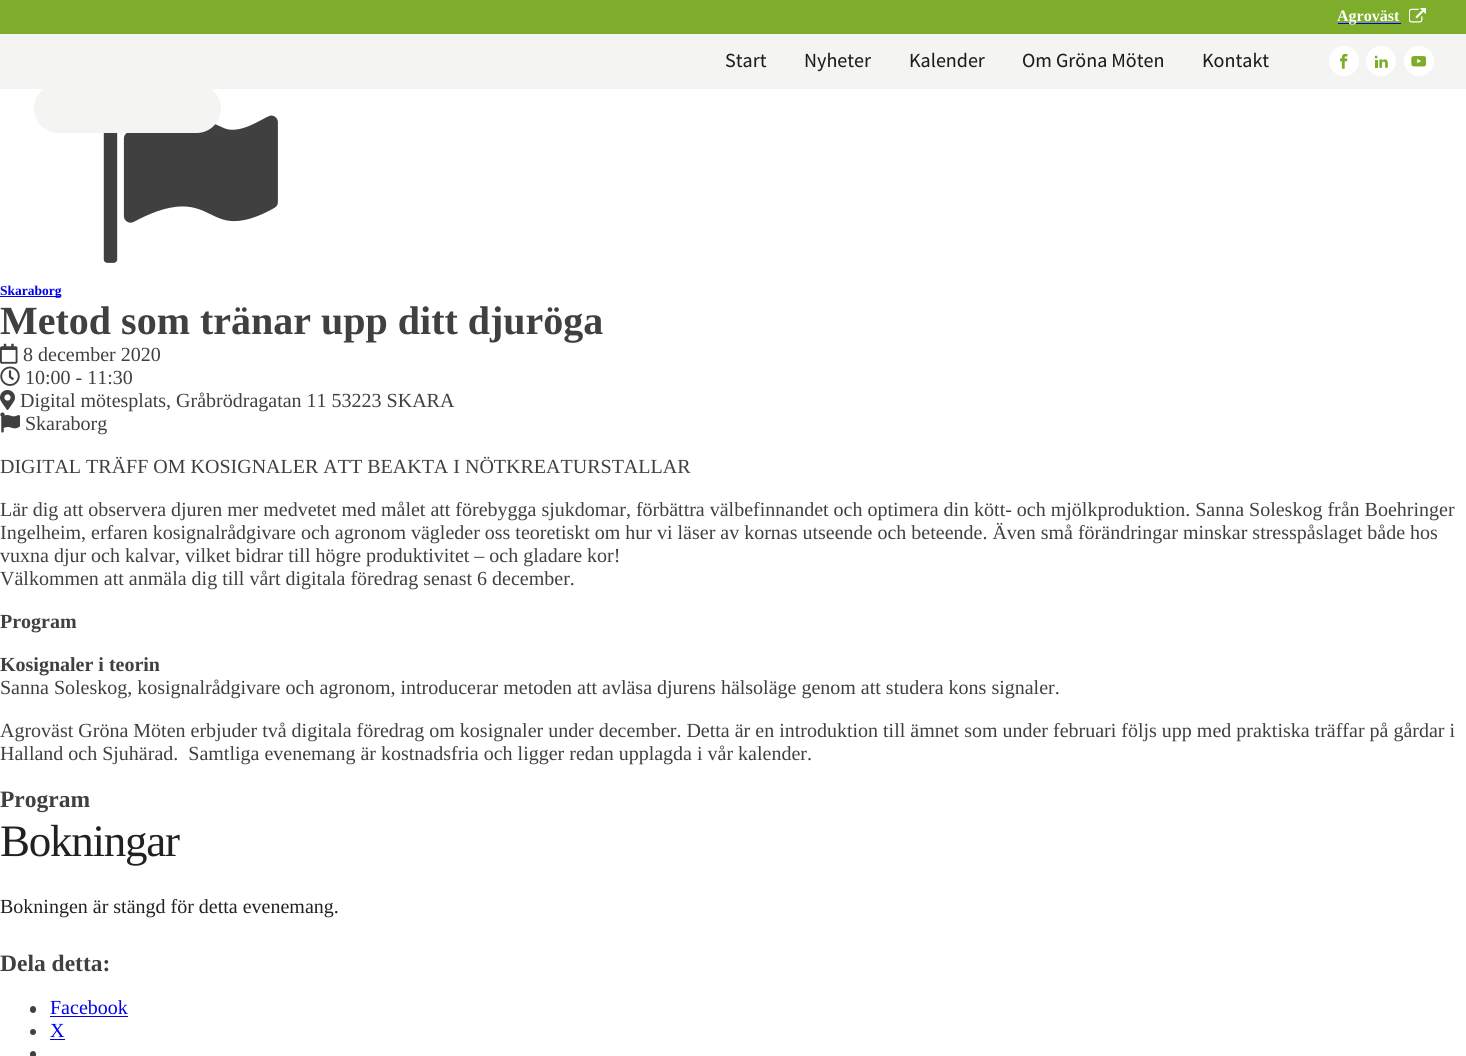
import math
import cairo

surface = cairo.ImageSurface(cairo.FORMAT_RGB24, 1466, 1056)
ctx = cairo.Context(surface)
options = cairo.FontOptions()
options.set_hint_metrics(cairo.HINT_METRICS_OFF)
options.set_hint_style(cairo.HINT_STYLE_NONE)
ctx.set_font_options(options)
ctx.set_miter_limit(4)


def set_color(code):
    ctx.set_source_rgb(*(v / 255 for v in bytes.fromhex(code[-6:])))


def draw_text(x, y, s, family, size, color, bold=False, italic=False):
    ctx.select_font_face(family, cairo.FONT_SLANT_ITALIC if italic else cairo.FONT_SLANT_NORMAL, cairo.FONT_WEIGHT_BOLD if bold else cairo.FONT_WEIGHT_NORMAL)
    ctx.set_font_size(size)
    set_color(color)
    ctx.move_to(x, y)
    ctx.show_text(s)


def draw_spaced(x, y, s, letter, word):
    ctx.move_to(x, y)
    for ch in s:
        ctx.show_text(ch)
        ctx.rel_move_to(letter + word * (ch == ' '), 0)


def fill_rect(x, y, w, h, color):
    set_color(color)
    ctx.rectangle(x, y, w, h)
    ctx.fill()


def rounded_rect(x, y, w, h, r):
    ctx.new_sub_path()
    for i, (u, v) in enumerate([(x + w - r, y + h - r), (x + r, y + h - r), (x + r, y + r), (x + w - r, y + r)]):
        ctx.arc(u, v, r, i * math.pi / 2, (i + 1) * math.pi / 2)
    ctx.close_path()


def draw_image(path, x, y, w, h):
    ctx.save()
    ctx.set_source_surface(cairo.ImageSurface.create_from_png(path), x, y)
    ctx.rectangle(x, y, w, h)
    ctx.fill()
    ctx.restore()


set_color("#ffffff")
ctx.paint()
fill_rect(0, 34, 1466, 55, "#f4f4f3")
fill_rect(0, 0, 1466, 34, "#7dad2a")
fill_rect(1338, 23, 63, 1, "#0000ee")
draw_text(1337, 21, "Agroväst", "Liberation Serif", 16, "#ffffff", bold=True)
draw_image("assets/img1.png", 1409, 8, 17, 15)
draw_text(725, 67, "Start", "Assistant Medium", 20, "#1d1d1b")
draw_text(804, 67, "Nyheter", "Assistant Medium", 20, "#1d1d1b")
draw_text(909, 67, "Kalender", "Assistant Medium", 20, "#1d1d1b")
draw_text(1022, 67, "Om Gröna Möten", "Assistant Medium", 20, "#1d1d1b")
draw_text(1202, 67, "Kontakt", "Assistant Medium", 20, "#1d1d1b")
set_color("#ffffff")
ctx.new_path()
ctx.arc(1344, 61, 15, 0, 2 * math.pi)
ctx.fill()
draw_image("assets/img2.png", 1340, 54, 8, 15)
ctx.arc(1381, 61, 15, 0, 2 * math.pi)
ctx.fill()
draw_image("assets/img3.png", 1374, 55, 14, 13)
ctx.arc(1419, 61, 15, 0, 2 * math.pi)
ctx.fill()
draw_image("assets/img4.png", 1411, 56, 15, 11)
draw_image("assets/img5.png", 103, 115, 175, 148)
set_color("#f4f4f3")
rounded_rect(34, 84, 187, 49, 24.5)
ctx.fill()
fill_rect(0, 296, 61, 1, "#0000ee")
draw_text(0, 295, "Skaraborg", "Liberation Serif", 13.5, "#0000ee", bold=True)
draw_text(0, 334, "Metod som tränar upp ditt djuröga", "Liberation Serif", 40, "#404040", bold=True)
draw_image("assets/img6.png", 0, 343, 18, 21)
draw_text(23, 361, "8 december 2020", "Liberation Serif", 20, "#404040")
draw_image("assets/img7.png", 0, 366, 20, 20)
draw_text(25, 384, "10:00 - 11:30", "Liberation Serif", 20, "#404040")
draw_image("assets/img8.png", 0, 390, 15, 20)
draw_text(20, 407, "Digital mötesplats, Gråbrödragatan 11 53223 SKARA", "Liberation Serif", 20, "#404040")
draw_image("assets/img9.png", 0, 412, 20, 21)
draw_text(25, 430, "Skaraborg", "Liberation Serif", 20, "#404040")
draw_text(0, 473, "DIGITAL TRÄFF OM KOSIGNALER ATT BEAKTA I NÖTKREATURSTALLAR", "Liberation Serif", 20, "#404040")
draw_text(0, 516, "Lär dig att observera djuren mer medvetet med målet att förebygga sjukdomar, förbättra välbefinnandet och optimera din kött- och mjölkproduktion. Sanna Soleskog från Boehringer", "Liberation Serif", 20, "#404040")
draw_text(0, 539, "Ingelheim, erfaren kosignalrådgivare och agronom vägleder oss teoretiskt om hur vi läser av kornas utseende och beteende. Även små förändringar minskar stresspåslaget både hos", "Liberation Serif", 20, "#404040")
draw_text(0, 562, "vuxna djur och kalvar, vilket bidrar till högre produktivitet – och gladare kor!", "Liberation Serif", 20, "#404040")
draw_text(0, 585, "Välkommen att anmäla dig till vårt digitala föredrag senast 6 december.", "Liberation Serif", 20, "#404040")
draw_text(0, 628, "Program", "Liberation Serif", 20, "#404040", bold=True)
draw_text(0, 671, "Kosignaler i teorin", "Liberation Serif", 20, "#404040", bold=True)
draw_text(0, 694, "Sanna Soleskog, kosignalrådgivare och agronom, introducerar metoden att avläsa djurens hälsoläge genom att studera kons signaler.", "Liberation Serif", 20, "#404040")
draw_text(0, 737, "Agroväst Gröna Möten erbjuder två digitala föredrag om kosignaler under december. Detta är en introduktion till ämnet som under februari följs upp med praktiska träffar på gårdar i", "Liberation Serif", 20, "#404040")
draw_text(0, 760, "Halland och Sjuhärad.  Samtliga evenemang är kostnadsfria och ligger redan upplagda i vår kalender.", "Liberation Serif", 20, "#404040")
draw_text(0, 807, "Program", "Liberation Serif", 23.5, "#404040", bold=True)
ctx.select_font_face("Liberation Serif")
ctx.set_font_size(45)
set_color("#212121")
draw_spaced(0, 856, "Bokningar", -1.25, 0)
draw_text(0, 913, "Bokningen är stängd för detta evenemang.", "Liberation Serif", 20, "#212121")
draw_text(0, 971, "Dela detta:", "Liberation Serif", 23.5, "#404040", bold=True)
rounded_rect(30, 1006, 6, 7, 3)
ctx.fill()
draw_text(50, 1014, "Facebook", "Liberation Serif", 20, "#0000ee")
fill_rect(50, 1016, 78, 1, "#0000ee")
set_color("#404040")
ctx.new_path()
ctx.arc(33, 1032, 3, 0, 2 * math.pi)
ctx.fill()
draw_text(50, 1037, "X", "Liberation Serif", 20, "#0000ee")
fill_rect(50, 1039, 15, 1, "#0000ee")
set_color("#404040")
rounded_rect(30, 1051, 6, 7, 3)
ctx.fill()
surface.write_to_png("output.png")
